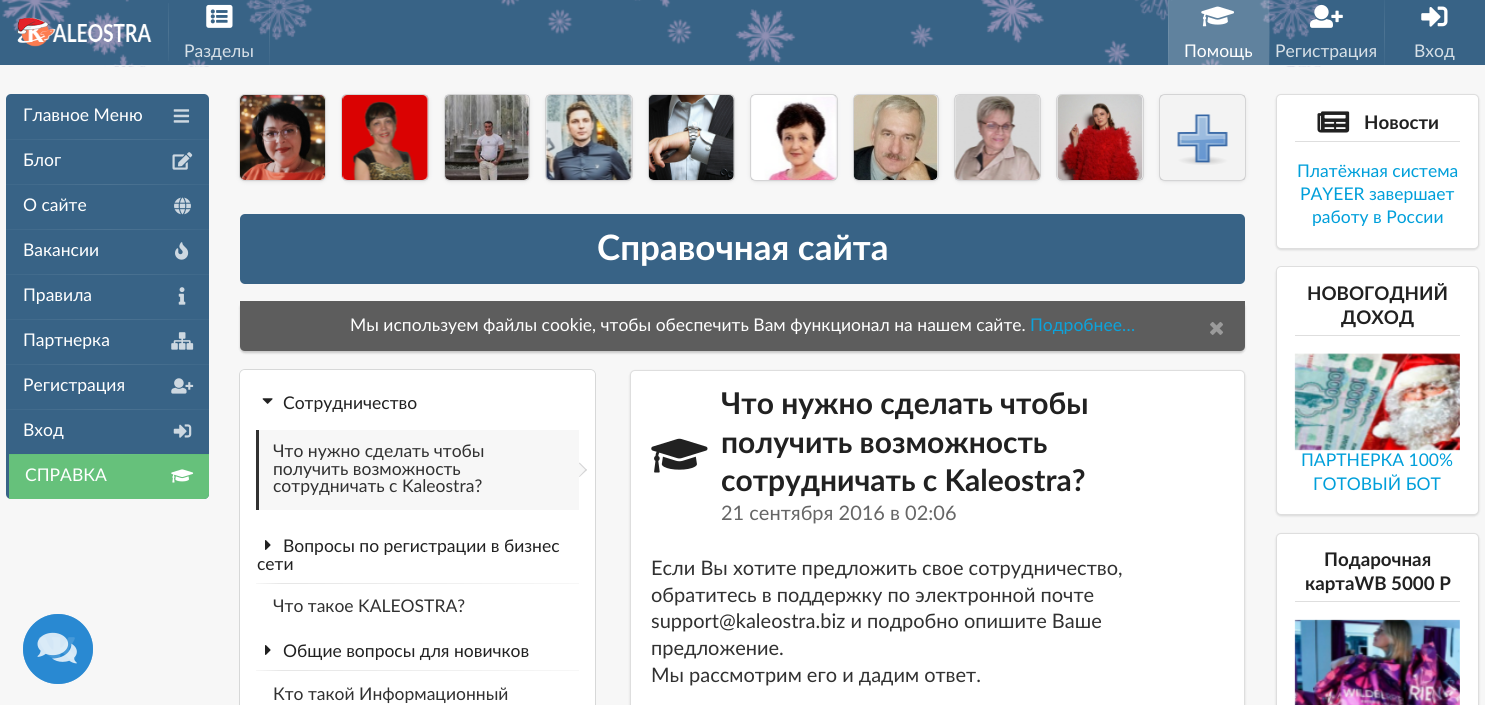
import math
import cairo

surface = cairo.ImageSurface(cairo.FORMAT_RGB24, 1485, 705)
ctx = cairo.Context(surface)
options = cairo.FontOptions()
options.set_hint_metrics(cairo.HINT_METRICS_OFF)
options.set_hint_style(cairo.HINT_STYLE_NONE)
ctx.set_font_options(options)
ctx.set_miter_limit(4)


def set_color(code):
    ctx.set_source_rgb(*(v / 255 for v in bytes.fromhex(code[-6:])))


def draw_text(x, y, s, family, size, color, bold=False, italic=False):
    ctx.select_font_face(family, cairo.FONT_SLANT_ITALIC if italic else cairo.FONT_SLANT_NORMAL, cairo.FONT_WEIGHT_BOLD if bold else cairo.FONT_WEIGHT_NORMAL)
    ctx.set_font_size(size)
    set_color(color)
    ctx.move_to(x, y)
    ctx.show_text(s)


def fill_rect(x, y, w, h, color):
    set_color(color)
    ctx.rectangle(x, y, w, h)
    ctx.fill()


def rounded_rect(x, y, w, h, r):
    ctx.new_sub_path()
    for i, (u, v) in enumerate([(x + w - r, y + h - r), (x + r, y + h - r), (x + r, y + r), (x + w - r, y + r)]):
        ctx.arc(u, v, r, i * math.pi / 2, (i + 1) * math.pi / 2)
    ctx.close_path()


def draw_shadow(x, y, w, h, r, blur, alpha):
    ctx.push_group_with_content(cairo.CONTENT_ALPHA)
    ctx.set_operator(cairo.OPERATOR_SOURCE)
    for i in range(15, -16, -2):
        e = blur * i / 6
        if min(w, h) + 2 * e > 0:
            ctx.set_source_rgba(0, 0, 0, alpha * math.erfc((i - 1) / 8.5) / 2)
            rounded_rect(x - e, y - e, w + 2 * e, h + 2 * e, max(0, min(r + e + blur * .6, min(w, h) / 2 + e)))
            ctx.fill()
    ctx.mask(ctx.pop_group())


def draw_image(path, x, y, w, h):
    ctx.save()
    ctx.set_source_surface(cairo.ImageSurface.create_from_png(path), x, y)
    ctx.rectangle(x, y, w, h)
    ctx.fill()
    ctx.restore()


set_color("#f7f7f7")
ctx.paint()
fill_rect(0, 0, 1485, 65, "#386386")
draw_image("assets/img1.png", 1, 0, 1320, 67)
fill_rect(113, 65, 1208, 1, "#f7f7f7")
draw_image("assets/img2.png", 16, 17, 136, 30)
gradient = cairo.LinearGradient(168, 2.5, 168, 61)
gradient.add_color_stop_rgba(0, 0.243, 0.408, 0.541, 1)
gradient.add_color_stop_rgba(0.5, 0.298, 0.451, 0.573, 1)
gradient.add_color_stop_rgba(1, 0.243, 0.408, 0.541, 1)
ctx.set_source(gradient)
ctx.rectangle(168, 3, 1, 58)
ctx.fill()
draw_image("assets/img3.png", 206, 4, 27, 24)
gradient = cairo.LinearGradient(269, 0, 269, 65)
gradient.add_color_stop_rgba(0, 1, 1, 1, 0.03)
gradient.add_color_stop_rgba(0.5, 1, 1, 1, 0.1)
gradient.add_color_stop_rgba(1, 1, 1, 1, 0.03)
ctx.set_source(gradient)
ctx.rectangle(269, 0, 1, 65)
ctx.fill()
draw_text(184, 57, "Разделы", "Lato", 17.5, "#d7e0e7")
set_color("#386386")
rounded_rect(1168, 0, 317, 65, 5)
ctx.fill()
draw_image("assets/img4.png", 1201, 0, 123, 65)
ctx.set_source_rgba(1, 1, 1, 0.2)
ctx.rectangle(1168, 0, 101, 65)
ctx.fill()
gradient = cairo.LinearGradient(1168, 0, 1168, 65)
gradient.add_color_stop_rgba(0, 1, 1, 1, 0.03)
gradient.add_color_stop_rgba(0.5, 1, 1, 1, 0.1)
gradient.add_color_stop_rgba(1, 1, 1, 1, 0.03)
ctx.set_source(gradient)
ctx.rectangle(1168, 0, 1, 65)
ctx.fill()
draw_image("assets/img5.png", 1201, 6, 33, 21)
draw_text(1184, 57, "Помощь", "Lato", 17.5, "#ffffff")
gradient = cairo.LinearGradient(1269, 0, 1269, 65)
gradient.add_color_stop_rgba(0, 1, 1, 1, 0.03)
gradient.add_color_stop_rgba(0.5, 1, 1, 1, 0.1)
gradient.add_color_stop_rgba(1, 1, 1, 1, 0.03)
ctx.set_source(gradient)
ctx.rectangle(1269, 0, 1, 65)
ctx.fill()
draw_image("assets/img6.png", 1310, 4, 33, 24)
draw_text(1275, 57, "Регистрация", "Lato", 17.5, "#d7e0e7")
gradient = cairo.LinearGradient(1384, 0, 1384, 65)
gradient.add_color_stop_rgba(0, 0.243, 0.408, 0.541, 1)
gradient.add_color_stop_rgba(0.5, 0.298, 0.451, 0.573, 1)
gradient.add_color_stop_rgba(1, 0.243, 0.408, 0.541, 1)
ctx.set_source(gradient)
ctx.rectangle(1384, 0, 1, 65)
ctx.fill()
draw_image("assets/img7.png", 1421, 6, 27, 21)
draw_text(1414, 57, "Вход", "Lato", 17.5, "#d7e0e7")
set_color("#386386")
rounded_rect(6, 94, 203, 405, 5)
ctx.fill()
draw_text(23, 121, "Главное Меню", "Lato", 17.5, "#ffffff")
draw_image("assets/img8.png", 173, 109, 17, 14)
gradient = cairo.LinearGradient(6.2, 139, 209, 139)
gradient.add_color_stop_rgba(0, 0.243, 0.408, 0.541, 1)
gradient.add_color_stop_rgba(0.5, 0.298, 0.451, 0.573, 1)
gradient.add_color_stop_rgba(1, 0.243, 0.408, 0.541, 1)
ctx.set_source(gradient)
ctx.rectangle(6, 139, 203, 1)
ctx.fill()
draw_text(23, 166, "Блог", "Lato", 17.5, "#ffffff")
draw_image("assets/img9.png", 172, 152, 21, 18)
gradient = cairo.LinearGradient(6.2, 184, 209, 184)
gradient.add_color_stop_rgba(0, 0.243, 0.408, 0.541, 1)
gradient.add_color_stop_rgba(0.5, 0.298, 0.451, 0.573, 1)
gradient.add_color_stop_rgba(1, 0.243, 0.408, 0.541, 1)
ctx.set_source(gradient)
ctx.rectangle(6, 184, 203, 1)
ctx.fill()
draw_text(23, 211, "О сайте", "Lato", 17.5, "#ffffff")
draw_image("assets/img10.png", 174, 197, 17, 18)
gradient = cairo.LinearGradient(6.2, 229, 209, 229)
gradient.add_color_stop_rgba(0, 0.243, 0.408, 0.541, 1)
gradient.add_color_stop_rgba(0.5, 0.298, 0.451, 0.573, 1)
gradient.add_color_stop_rgba(1, 0.243, 0.408, 0.541, 1)
ctx.set_source(gradient)
ctx.rectangle(6, 229, 203, 1)
ctx.fill()
draw_text(23, 256, "Вакансии", "Lato", 17.5, "#ffffff")
draw_image("assets/img11.png", 175, 242, 14, 18)
gradient = cairo.LinearGradient(6.2, 274, 209, 274)
gradient.add_color_stop_rgba(0, 0.243, 0.408, 0.541, 1)
gradient.add_color_stop_rgba(0.5, 0.298, 0.451, 0.573, 1)
gradient.add_color_stop_rgba(1, 0.243, 0.408, 0.541, 1)
ctx.set_source(gradient)
ctx.rectangle(6, 274, 203, 1)
ctx.fill()
draw_text(23, 301, "Правила", "Lato", 17.5, "#ffffff")
draw_image("assets/img12.png", 178, 287, 8, 18)
gradient = cairo.LinearGradient(6.2, 319, 209, 319)
gradient.add_color_stop_rgba(0, 0.243, 0.408, 0.541, 1)
gradient.add_color_stop_rgba(0.5, 0.298, 0.451, 0.573, 1)
gradient.add_color_stop_rgba(1, 0.243, 0.408, 0.541, 1)
ctx.set_source(gradient)
ctx.rectangle(6, 319, 203, 1)
ctx.fill()
draw_text(23, 346, "Партнерка", "Lato", 17.5, "#ffffff")
draw_image("assets/img13.png", 171, 332, 23, 18)
gradient = cairo.LinearGradient(6.2, 364, 209, 364)
gradient.add_color_stop_rgba(0, 0.243, 0.408, 0.541, 1)
gradient.add_color_stop_rgba(0.5, 0.298, 0.451, 0.573, 1)
gradient.add_color_stop_rgba(1, 0.243, 0.408, 0.541, 1)
ctx.set_source(gradient)
ctx.rectangle(6, 364, 203, 1)
ctx.fill()
draw_text(23, 391, "Регистрация", "Lato", 17.5, "#ffffff")
draw_image("assets/img14.png", 171, 378, 23, 16)
gradient = cairo.LinearGradient(6.2, 409, 209, 409)
gradient.add_color_stop_rgba(0, 0.243, 0.408, 0.541, 1)
gradient.add_color_stop_rgba(0.5, 0.298, 0.451, 0.573, 1)
gradient.add_color_stop_rgba(1, 0.243, 0.408, 0.541, 1)
ctx.set_source(gradient)
ctx.rectangle(6, 409, 203, 1)
ctx.fill()
draw_text(23, 436, "Вход", "Lato", 17.5, "#ffffff")
draw_image("assets/img15.png", 173, 424, 19, 14)
set_color("#66c17b")
ctx.new_path()
ctx.move_to(9, 454)
ctx.line_to(209, 454)
ctx.line_to(209, 494)
ctx.curve_to(209, 497, 207, 499, 204, 499)
ctx.line_to(9, 499)
ctx.close_path()
ctx.fill()
gradient = cairo.LinearGradient(9, 454, 209, 454)
gradient.add_color_stop_rgba(0, 0.376, 0.749, 0.463, 1)
gradient.add_color_stop_rgba(0.5, 0.42, 0.769, 0.502, 1)
gradient.add_color_stop_rgba(1, 0.376, 0.749, 0.463, 1)
ctx.set_source(gradient)
ctx.rectangle(9, 454, 200, 1)
ctx.fill()
draw_text(25, 481, "СПРАВКА", "Lato", 17.5, "#ffffff")
draw_image("assets/img16.png", 171, 469, 23, 14)
rounded_rect(239.5, 94.5, 86, 86, 5.5)
set_color("#d4d4d5")
ctx.set_line_width(1)
ctx.stroke()
set_color("#d4d4d5")
draw_shadow(240, 96, 85, 85, 5, 2, 1)
draw_image("assets/img17.png", 240, 95, 85, 85)
rounded_rect(341.5, 94.5, 87, 86, 5.5)
set_color("#d4d4d5")
ctx.stroke()
set_color("#d4d4d5")
draw_shadow(343, 96, 85, 85, 5, 2, 1)
set_color("#ffffff")
rounded_rect(343, 95, 85, 85, 5)
ctx.fill()
ctx.set_source_rgba(0, 0, 0, 0.05)
ctx.rectangle(343, 95, 85, 85)
ctx.fill()
draw_image("assets/img18.png", 342, 95, 86, 85)
rounded_rect(444.5, 94.5, 85, 86, 5.5)
set_color("#d4d4d5")
ctx.stroke()
set_color("#d4d4d5")
draw_shadow(445, 96, 84, 85, 5, 2, 1)
set_color("#ffffff")
rounded_rect(445, 95, 84, 85, 5)
ctx.fill()
ctx.set_source_rgba(0, 0, 0, 0.05)
ctx.rectangle(445, 95, 84, 85)
ctx.fill()
draw_image("assets/img19.png", 445, 95, 84, 85)
rounded_rect(545.5, 94.5, 87, 86, 5.5)
set_color("#d4d4d5")
ctx.stroke()
set_color("#d4d4d5")
draw_shadow(546, 96, 85, 85, 5, 2, 1)
set_color("#ffffff")
rounded_rect(546, 95, 85, 85, 5)
ctx.fill()
ctx.set_source_rgba(0, 0, 0, 0.05)
ctx.rectangle(546, 95, 85, 85)
ctx.fill()
draw_image("assets/img20.png", 545, 95, 87, 85)
rounded_rect(648.5, 94.5, 86, 86, 5.5)
set_color("#d4d4d5")
ctx.stroke()
set_color("#d4d4d5")
draw_shadow(649, 96, 85, 85, 5, 2, 1)
set_color("#ffffff")
rounded_rect(649, 95, 85, 85, 5)
ctx.fill()
ctx.set_source_rgba(0, 0, 0, 0.05)
ctx.rectangle(649, 95, 85, 85)
ctx.fill()
draw_image("assets/img21.png", 648, 95, 86, 85)
rounded_rect(750.5, 94.5, 87, 86, 5.5)
set_color("#d4d4d5")
ctx.stroke()
set_color("#d4d4d5")
draw_shadow(751, 96, 85, 85, 5, 2, 1)
set_color("#ffffff")
rounded_rect(751, 95, 85, 85, 5)
ctx.fill()
ctx.set_source_rgba(0, 0, 0, 0.05)
ctx.rectangle(751, 95, 85, 85)
ctx.fill()
draw_image("assets/img22.png", 751, 95, 86, 85)
rounded_rect(853.5, 94.5, 85, 86, 5.5)
set_color("#d4d4d5")
ctx.stroke()
set_color("#d4d4d5")
draw_shadow(854, 96, 84, 85, 5, 2, 1)
set_color("#ffffff")
rounded_rect(854, 95, 84, 85, 5)
ctx.fill()
ctx.set_source_rgba(0, 0, 0, 0.05)
ctx.rectangle(854, 95, 84, 85)
ctx.fill()
draw_image("assets/img23.png", 853, 95, 85, 85)
rounded_rect(954.5, 94.5, 86, 86, 5.5)
set_color("#d4d4d5")
ctx.stroke()
set_color("#d4d4d5")
draw_shadow(955, 96, 85, 85, 5, 2, 1)
set_color("#ffffff")
rounded_rect(955, 95, 85, 85, 5)
ctx.fill()
ctx.set_source_rgba(0, 0, 0, 0.05)
ctx.rectangle(955, 95, 85, 85)
ctx.fill()
draw_image("assets/img24.png", 954, 95, 87, 85)
rounded_rect(1056.5, 94.5, 87, 86, 5.5)
set_color("#d4d4d5")
ctx.stroke()
set_color("#d4d4d5")
draw_shadow(1058, 96, 85, 85, 5, 2, 1)
set_color("#ffffff")
rounded_rect(1058, 95, 85, 85, 5)
ctx.fill()
ctx.set_source_rgba(0, 0, 0, 0.05)
ctx.rectangle(1059, 95, 84, 85)
ctx.fill()
draw_image("assets/img25.png", 1057, 95, 86, 85)
rounded_rect(1159.5, 94.5, 86, 86, 5.5)
set_color("#d4d4d5")
ctx.stroke()
set_color("#d4d4d5")
draw_shadow(1160, 96, 85, 85, 5, 2, 1)
set_color("#ffffff")
rounded_rect(1160, 95, 85, 85, 5)
ctx.fill()
ctx.set_source_rgba(0, 0, 0, 0.05)
ctx.rectangle(1160, 95, 85, 85)
ctx.fill()
draw_image("assets/img26.png", 1177, 114, 51, 51)
set_color("#386386")
rounded_rect(240, 214, 1005, 70, 5)
ctx.fill()
draw_text(597, 260, "Справочная сайта", "Lato", 35, "#ffffff", bold=True)
set_color("#0c0c0c")
draw_shadow(240, 303, 1005, 50, 5, 1, 0.2)
set_color("#5d5d5d")
ctx.new_path()
ctx.move_to(240, 301)
ctx.line_to(1245, 301)
ctx.line_to(1245, 346)
ctx.curve_to(1245, 349, 1243, 351, 1240, 351)
ctx.line_to(245, 351)
ctx.curve_to(242, 351, 240, 349, 240, 346)
ctx.close_path()
ctx.fill()
draw_text(350, 331, "Мы используем файлы cookie, чтобы обеспечить Вам функционал на нашем сайте.", "Lato", 17.5, "#ffffff")
draw_text(1030, 331, "Подробнее…", "Lato", 17.5, "#0ca3db")
draw_image("assets/img27.png", 1210, 322, 13, 13)
rounded_rect(239.5, 369.5, 356, 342, 5.5)
ctx.set_source_rgba(0.153, 0.161, 0.169, 0.15)
ctx.stroke()
set_color("#ffffff")
rounded_rect(240, 370, 355, 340, 5)
ctx.fill()
draw_image("assets/img28.png", 262, 398, 11, 6)
draw_text(283, 409, "Сотрудничество", "Lato", 17.5, "#212121")
fill_rect(259, 430, 320, 80, "#f7f7f7")
fill_rect(256, 430, 3, 80, "#313131")
draw_text(273, 457, "Что нужно сделать чтобы", "Lato", 17.5, "#313131")
draw_text(273, 475, "получить возможность", "Lato", 17.5, "#313131")
set_color("#f7f7f7")
ctx.new_path()
ctx.move_to(579.5, 462.5)
ctx.line_to(587, 470)
ctx.line_to(579.5, 477)
ctx.line_to(572.5, 470)
ctx.close_path()
ctx.fill()
set_color("#d4d4d5")
ctx.new_path()
ctx.move_to(579.5, 462.5)
ctx.line_to(587, 470)
ctx.line_to(586, 470.5)
ctx.line_to(579, 463.5)
ctx.close_path()
ctx.fill()
ctx.new_path()
ctx.move_to(586, 469)
ctx.line_to(587, 470)
ctx.line_to(579.5, 477)
ctx.line_to(579, 476.5)
ctx.close_path()
ctx.fill()
draw_text(273, 492, "сотрудничать с Kaleostra?", "Lato", 17.5, "#313131")
draw_image("assets/img29.png", 265, 540, 6, 10)
draw_text(283, 552, "Вопросы по регистрации в бизнес", "Lato", 17.5, "#212121")
draw_text(257, 570, "сети", "Lato", 17.5, "#212121")
gradient = cairo.LinearGradient(256, 583, 579, 583)
gradient.add_color_stop_rgba(0, 0.969, 0.969, 0.969, 1)
gradient.add_color_stop_rgba(0.08, 0.902, 0.902, 0.902, 1)
gradient.add_color_stop_rgba(1, 0.969, 0.969, 0.969, 1)
ctx.set_source(gradient)
ctx.rectangle(256, 583, 323, 1)
ctx.fill()
draw_text(273, 612, "Что такое KALEOSTRA?", "Lato", 17.5, "#313131")
draw_image("assets/img29.png", 265, 645, 6, 10)
draw_text(283, 657, "Общие вопросы для новичков", "Lato", 17.5, "#212121")
gradient = cairo.LinearGradient(256, 671, 579, 671)
gradient.add_color_stop_rgba(0, 0.969, 0.969, 0.969, 1)
gradient.add_color_stop_rgba(0.08, 0.902, 0.902, 0.902, 1)
gradient.add_color_stop_rgba(1, 0.969, 0.969, 0.969, 1)
ctx.set_source(gradient)
ctx.rectangle(256, 670, 323, 1)
ctx.fill()
draw_text(273, 700, "Кто такой Информационный", "Lato", 17.5, "#313131")
set_color("#222426")
draw_shadow(630, 371, 615, 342, 5, 1, 0.15)
set_color("#ffffff")
rounded_rect(630, 370, 615, 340, 5)
ctx.fill()
rounded_rect(630.5, 370.5, 614, 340, 4.5)
ctx.set_source_rgba(0.133, 0.141, 0.149, 0.15)
ctx.stroke()
draw_image("assets/img30.png", 651, 438, 57, 35)
draw_text(721, 414, "Что нужно сделать чтобы", "Lato", 30, "#212121", bold=True)
draw_text(721, 453, "получить возможность", "Lato", 30, "#212121", bold=True)
draw_text(721, 491, "сотрудничать с Kaleostra?", "Lato", 30, "#212121", bold=True)
draw_text(721, 520, "21 сентября 2016 в 02:06", "Lato", 20, "#666666")
draw_text(651, 575, "Если Вы хотите предложить свое сотрудничество,", "Lato", 20, "#313131")
draw_text(651, 602, "обратитесь в поддержку по электронной почте", "Lato", 20, "#313131")
draw_text(651, 628, "support@kaleostra.biz и подробно опишите Ваше", "Lato", 20, "#313131")
draw_text(651, 655, "предложение.", "Lato", 20, "#313131")
draw_text(651, 682, "Мы рассмотрим его и дадим ответ.", "Lato", 20, "#313131")
set_color("#222426")
draw_shadow(1276, 95, 203, 155, 5, 1, 0.15)
set_color("#ffffff")
rounded_rect(1276, 94, 203, 155, 5)
ctx.fill()
rounded_rect(1276.5, 94.5, 202, 154, 4.5)
ctx.set_source_rgba(0.133, 0.141, 0.149, 0.15)
ctx.stroke()
fill_rect(1295, 141, 165, 1, "#dedede")
draw_image("assets/img31.png", 1317, 111, 33, 22)
draw_text(1364, 129, "Новости", "Lato", 18.75, "#212121", bold=True)
draw_text(1297, 177, "Платёжная система", "Lato", 17.5, "#009fda")
draw_text(1300, 200, "PAYEER завершает", "Lato", 17.5, "#009fda")
draw_text(1312, 223, "работу в России", "Lato", 17.5, "#009fda")
set_color("#222426")
draw_shadow(1276, 268, 203, 248, 5, 1, 0.15)
set_color("#ffffff")
rounded_rect(1276, 266, 203, 249, 5)
ctx.fill()
rounded_rect(1276.5, 266.5, 202, 248, 4.5)
ctx.set_source_rgba(0.133, 0.141, 0.149, 0.15)
ctx.stroke()
fill_rect(1295, 335, 165, 1, "#dedede")
draw_text(1307, 300, "НОВОГОДНИЙ", "Lato", 18.75, "#212121", bold=True)
draw_text(1341, 324, "ДОХОД", "Lato", 18.75, "#212121", bold=True)
draw_image("assets/img32.png", 1294, 353, 166, 98)
draw_text(1301, 466, "ПАРТНЕРКА 100%", "Lato", 17.5, "#009fda")
draw_text(1313, 490, "ГОТОВЫЙ БОТ", "Lato", 17.5, "#009fda")
set_color("#222426")
draw_shadow(1276, 534, 203, 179, 5, 1, 0.15)
set_color("#ffffff")
rounded_rect(1276, 533, 203, 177, 5)
ctx.fill()
rounded_rect(1276.5, 533.5, 202, 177, 4.5)
ctx.set_source_rgba(0.133, 0.141, 0.149, 0.15)
ctx.stroke()
fill_rect(1295, 601, 165, 1, "#dedede")
draw_text(1324, 566, "Подарочная", "Lato", 18.75, "#212121", bold=True)
draw_text(1305, 590, "картаWB 5000 Р", "Lato", 18.75, "#212121", bold=True)
draw_image("assets/img33.png", 1294, 619, 166, 86)
set_color("#4c9cd8")
ctx.arc(58, 649, 35, 0, 2 * math.pi)
ctx.fill()
draw_image("assets/img34.png", 38, 637, 38, 23)
ctx.set_source_rgba(0.129, 0.522, 0.816, 0.8)
ctx.arc(58, 649, 35, 0, 2 * math.pi)
ctx.fill()
draw_image("assets/img35.png", 37, 632, 40, 32)
surface.write_to_png("output.png")
